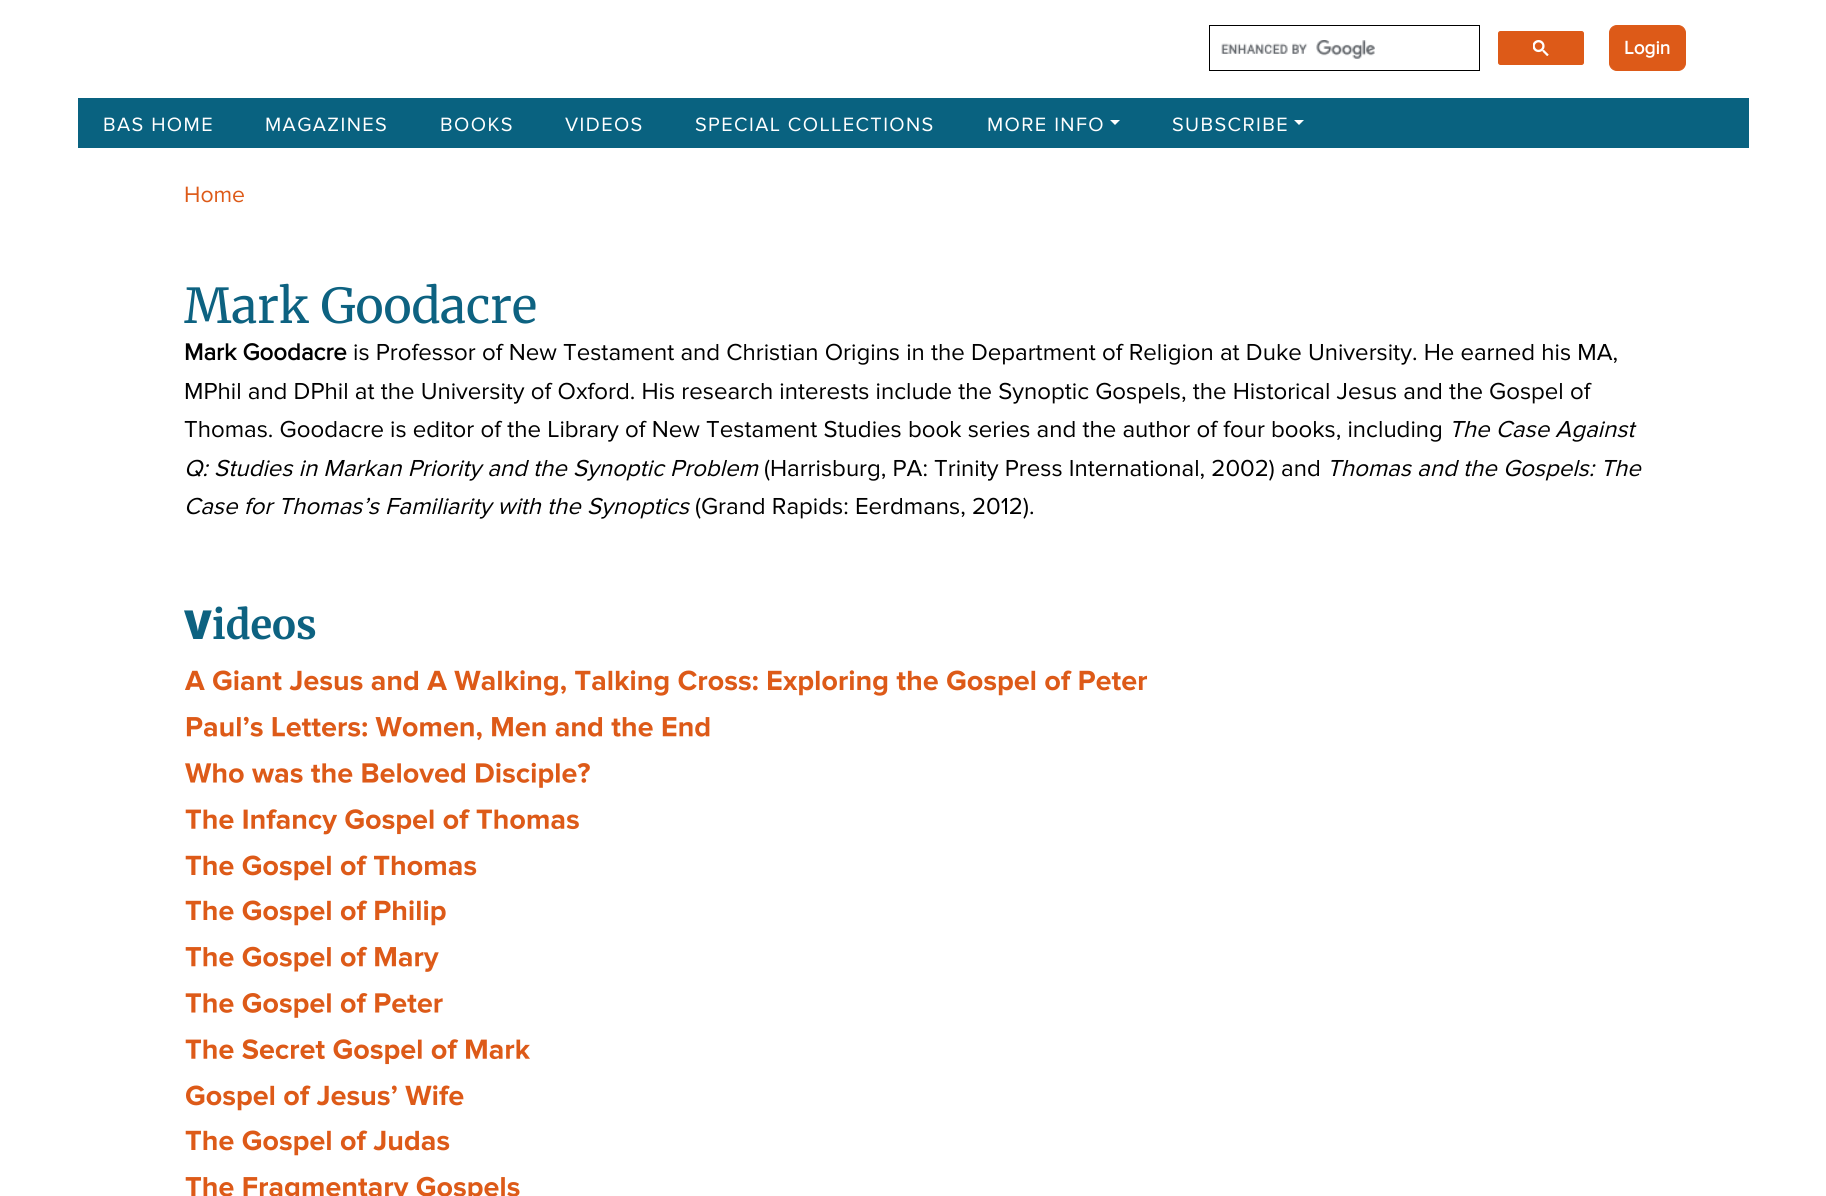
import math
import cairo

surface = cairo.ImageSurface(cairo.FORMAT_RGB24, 1826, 1196)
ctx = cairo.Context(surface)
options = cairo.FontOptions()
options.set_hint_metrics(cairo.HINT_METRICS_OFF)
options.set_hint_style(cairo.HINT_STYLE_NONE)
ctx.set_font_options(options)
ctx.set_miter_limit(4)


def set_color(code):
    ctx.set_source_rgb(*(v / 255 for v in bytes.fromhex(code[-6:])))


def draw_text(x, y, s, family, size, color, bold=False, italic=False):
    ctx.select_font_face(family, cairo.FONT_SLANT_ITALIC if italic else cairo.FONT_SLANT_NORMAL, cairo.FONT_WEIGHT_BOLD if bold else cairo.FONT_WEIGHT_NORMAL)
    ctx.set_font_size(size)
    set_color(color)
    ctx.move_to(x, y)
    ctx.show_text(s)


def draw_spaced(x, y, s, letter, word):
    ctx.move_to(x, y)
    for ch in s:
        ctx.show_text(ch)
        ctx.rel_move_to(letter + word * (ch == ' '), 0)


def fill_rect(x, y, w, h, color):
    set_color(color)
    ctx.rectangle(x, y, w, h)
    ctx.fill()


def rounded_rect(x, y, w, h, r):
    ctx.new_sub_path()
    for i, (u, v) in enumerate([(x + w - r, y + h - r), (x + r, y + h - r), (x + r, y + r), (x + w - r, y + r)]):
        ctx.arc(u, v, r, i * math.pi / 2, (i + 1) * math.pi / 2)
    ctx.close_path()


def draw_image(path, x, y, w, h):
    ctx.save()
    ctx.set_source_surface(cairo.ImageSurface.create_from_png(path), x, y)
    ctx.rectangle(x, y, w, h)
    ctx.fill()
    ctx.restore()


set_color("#ffffff")
ctx.paint()
ctx.rectangle(1209.5, 25.5, 270, 45)
set_color("#000000")
ctx.set_line_width(1)
ctx.stroke()
draw_image("assets/img1.png", 1221, 40, 154, 19)
set_color("#dd5a18")
rounded_rect(1498.5, 31.5, 85, 33, 2)
ctx.fill_preserve()
ctx.stroke()
draw_image("assets/img2.png", 1533, 40, 16, 16)
rounded_rect(1609.5, 25.5, 76, 45, 7.5)
ctx.fill_preserve()
ctx.stroke()
draw_text(1624, 54, "Login", "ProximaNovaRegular", 19, "#ffffff", bold=True)
fill_rect(78, 98, 1671, 50, "#096280")
ctx.select_font_face("ProximaNovaRegular")
ctx.set_font_size(20)
set_color("#ffffff")
draw_spaced(103, 131, "BAS HOME", 1.4, 0)
draw_spaced(265, 131, "MAGAZINES", 1.4, 0)
draw_spaced(440, 131, "BOOKS", 1.4, 0)
draw_spaced(565, 131, "VIDEOS", 1.4, 0)
draw_spaced(695, 131, "SPECIAL COLLECTIONS", 1.4, 0)
draw_spaced(987, 131, "MORE INFO", 1.4, 0)
ctx.new_path()
ctx.move_to(1110, 120)
ctx.line_to(1120, 120)
ctx.line_to(1115, 125)
ctx.close_path()
ctx.fill()
draw_spaced(1172, 131, "SUBSCRIBE", 1.4, 0)
ctx.new_path()
ctx.move_to(1294, 120)
ctx.line_to(1304, 120)
ctx.line_to(1299, 125)
ctx.close_path()
ctx.fill()
draw_text(184, 202, "Home", "ProximaNovaRegular", 23, "#dd5a18")
draw_text(184, 323, "Mark Goodacre", "Merriweather", 48, "#0d6281")
draw_text(184, 360, "Mark Goodacre", "ProximaNovaRegular", 24, "#000000", bold=True)
draw_text(353, 360, "is Professor of New Testament and Christian Origins in the Department of Religion at Duke University. He earned his MA,", "ProximaNovaRegular", 24, "#000000")
draw_text(184, 399, "MPhil and DPhil at the University of Oxford. His research interests include the Synoptic Gospels, the Historical Jesus and the Gospel of", "ProximaNovaRegular", 24, "#000000")
draw_text(184, 437, "Thomas. Goodacre is editor of the Library of New Testament Studies book series and the author of four books, including", "ProximaNovaRegular", 24, "#000000")
draw_text(1449, 437, "The Case Against", "ProximaNovaRegular", 24, "#000000", italic=True)
draw_text(184, 476, "Q: Studies in Markan Priority and the Synoptic Problem", "ProximaNovaRegular", 24, "#000000", italic=True)
draw_text(764, 476, "(Harrisburg, PA: Trinity Press International, 2002) and", "ProximaNovaRegular", 24, "#000000")
draw_text(1327, 476, "Thomas and the Gospels: The", "ProximaNovaRegular", 24, "#000000", italic=True)
draw_text(184, 514, "Case for Thomas’s Familiarity with the Synoptics", "ProximaNovaRegular", 24, "#000000", italic=True)
draw_text(695, 514, "(Grand Rapids: Eerdmans, 2012).", "ProximaNovaRegular", 24, "#000000")
draw_text(184, 639, "V", "Noto Sans Black", 40, "#0d6281")
draw_text(212, 639, "ideos", "Merriweather", 40, "#0d6281", bold=True)
draw_image("assets/img3.png", 185, 670, 963, 26)
draw_image("assets/img4.png", 186, 716, 524, 25)
draw_image("assets/img5.png", 185, 762, 405, 26)
draw_image("assets/img6.png", 185, 809, 394, 26)
draw_image("assets/img7.png", 185, 855, 292, 26)
draw_image("assets/img8.png", 185, 900, 261, 26)
draw_image("assets/img9.png", 185, 946, 254, 26)
draw_image("assets/img10.png", 185, 993, 258, 25)
draw_image("assets/img11.png", 185, 1039, 345, 26)
draw_image("assets/img12.png", 186, 1085, 278, 26)
draw_image("assets/img13.png", 185, 1130, 265, 26)
draw_image("assets/img14.png", 185, 1176, 335, 20)
surface.write_to_png("output.png")
